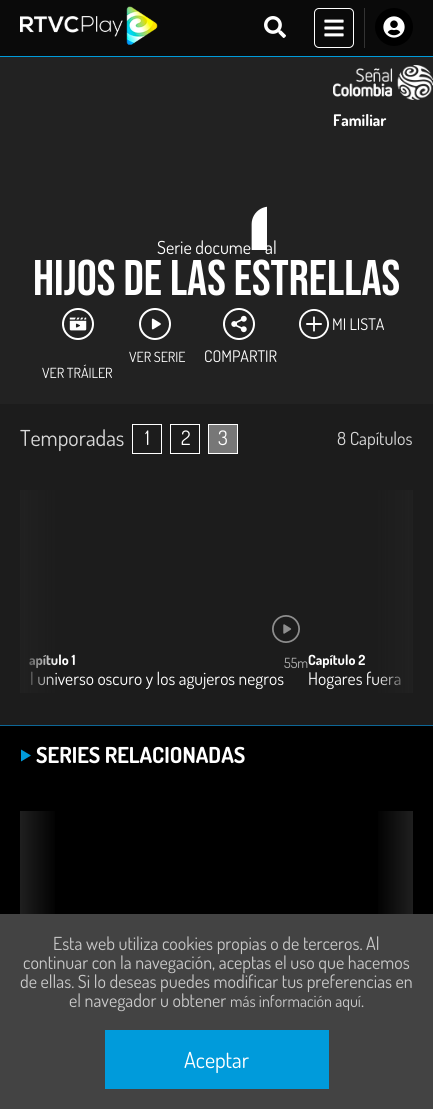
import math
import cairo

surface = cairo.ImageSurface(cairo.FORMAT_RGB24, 433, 1109)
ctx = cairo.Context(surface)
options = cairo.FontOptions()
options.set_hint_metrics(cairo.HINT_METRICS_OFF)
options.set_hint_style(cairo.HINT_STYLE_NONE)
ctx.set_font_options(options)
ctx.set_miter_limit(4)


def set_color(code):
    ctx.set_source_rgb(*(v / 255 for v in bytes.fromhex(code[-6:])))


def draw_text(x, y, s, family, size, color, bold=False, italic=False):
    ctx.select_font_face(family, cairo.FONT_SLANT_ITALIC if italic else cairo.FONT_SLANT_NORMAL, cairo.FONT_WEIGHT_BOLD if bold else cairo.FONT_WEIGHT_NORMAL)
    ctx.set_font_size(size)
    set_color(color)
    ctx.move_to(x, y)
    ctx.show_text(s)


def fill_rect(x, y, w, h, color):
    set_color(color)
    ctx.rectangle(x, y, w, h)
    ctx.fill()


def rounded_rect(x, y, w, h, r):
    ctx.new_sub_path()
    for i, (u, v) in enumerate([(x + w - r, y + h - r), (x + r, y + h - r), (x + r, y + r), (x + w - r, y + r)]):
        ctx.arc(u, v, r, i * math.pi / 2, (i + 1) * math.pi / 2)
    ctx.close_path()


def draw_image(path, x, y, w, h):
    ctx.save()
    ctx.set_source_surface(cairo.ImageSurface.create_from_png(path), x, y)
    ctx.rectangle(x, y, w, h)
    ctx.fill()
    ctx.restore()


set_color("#222222")
ctx.paint()
fill_rect(0, 0, 433, 56, "#0a0a0a")
draw_image("assets/img1.png", 20, 6, 138, 39)
draw_image("assets/img2.png", 264, 16, 22, 22)
rounded_rect(314.5, 8.5, 39, 39, 4.5)
set_color("#ffffff")
ctx.set_line_width(1)
ctx.stroke()
draw_image("assets/img3.png", 324, 19, 20, 18)
fill_rect(364, 8, 1, 40, "#333333")
set_color("#000000")
ctx.arc(394, 27, 19, 0, 2 * math.pi)
ctx.fill()
draw_image("assets/img4.png", 383, 16, 22, 22)
fill_rect(0, 56, 433, 1, "#009bdb")
draw_image("assets/img5.png", 333, 65, 100, 35)
draw_text(333, 126, "Familiar", "Dosis", 16, "#ffffff", bold=True)
draw_text(265, 254, "al", "Dosis", 18, "#ffffff")
draw_image("assets/img6.png", 251, 206, 16, 44)
draw_text(157, 254, "Serie docume", "Dosis", 18, "#ffffff")
draw_text(33, 295, "Hijos de las estrellas", "Bebas Neue", 50, "#ffffff")
draw_image("assets/img7.png", 299, 309, 30, 30)
draw_text(332, 330, "MI LISTA", "Dosis", 16, "#ffffff")
draw_image("assets/img8.png", 139, 308, 32, 32)
draw_text(129, 362, "VER SERIE", "Dosis", 14, "#ffffff")
draw_image("assets/img9.png", 223, 308, 32, 32)
draw_text(204, 362, "COMPARTIR", "Dosis", 16, "#ffffff")
draw_image("assets/img10.png", 62, 308, 32, 32)
draw_text(42, 378, "VER TRÁILER", "Dosis", 14, "#ffffff")
fill_rect(0, 404, 433, 321, "#1c1c1c")
draw_text(20, 446, "Temporadas", "Dosis", 22, "#d9d9d9")
ctx.rectangle(132.5, 424.5, 29, 29)
set_color("#ffffff")
ctx.stroke()
draw_text(145, 445, "1", "Dosis", 20, "#ffffff")
ctx.rectangle(170.5, 424.5, 29, 29)
ctx.stroke()
draw_text(181, 445, "2", "Dosis", 20, "#ffffff")
set_color("#777777")
ctx.rectangle(208.5, 424.5, 29, 29)
ctx.fill_preserve()
set_color("#ffffff")
ctx.stroke()
draw_text(218, 445, "3", "Dosis", 20, "#ffffff")
draw_text(337, 445, "8 Capítulos", "Dosis", 18, "#d9d9d9")
draw_text(29, 665, "apítulo 1", "Dosis", 14, "#ffffff", bold=True)
draw_text(30, 685, "l universo oscuro y los agujeros negros", "Dosis", 17.5, "#ffffff")
gradient = cairo.LinearGradient(58, 607, 18, 607)
gradient.add_color_stop_rgba(0, 0.129, 0.129, 0.129, 0)
gradient.add_color_stop_rgba(1, 0.129, 0.129, 0.129, 1)
ctx.set_source(gradient)
ctx.rectangle(20, 490, 37, 203)
ctx.fill()
draw_text(308, 685, "Hogares fuera", "Dosis", 17.5, "#ffffff")
gradient = cairo.LinearGradient(375, 607, 415, 607)
gradient.add_color_stop_rgba(0, 0.129, 0.129, 0.129, 0)
gradient.add_color_stop_rgba(1, 0.129, 0.129, 0.129, 1)
ctx.set_source(gradient)
ctx.rectangle(376, 490, 37, 203)
ctx.fill()
draw_image("assets/img11.png", 272, 615, 28, 28)
draw_text(284, 668, "55m", "Dosis", 14, "#b4b4b4")
draw_text(308, 665, "Capítulo 2", "Dosis", 14, "#ffffff", bold=True)
fill_rect(0, 726, 433, 188, "#000000")
fill_rect(0, 725, 433, 1, "#0e6796")
set_color("#009bdb")
ctx.set_fill_rule(cairo.FILL_RULE_EVEN_ODD)
ctx.new_path()
ctx.move_to(31, 755.5)
ctx.line_to(21, 761.5)
ctx.line_to(21, 749.5)
ctx.close_path()
ctx.fill()
draw_text(36, 763, "SERIES RELACIONADAS", "Dosis", 22, "#ffffff", bold=True)
gradient = cairo.LinearGradient(58, 976, 18, 976)
gradient.add_color_stop_rgba(0, 0, 0, 0, 1)
gradient.add_color_stop_rgba(1, 0.129, 0.129, 0.129, 1)
ctx.set_source(gradient)
ctx.rectangle(20, 811, 35, 103)
ctx.fill()
gradient = cairo.LinearGradient(375, 976, 415, 976)
gradient.add_color_stop_rgba(0, 0, 0, 0, 1)
gradient.add_color_stop_rgba(1, 0.129, 0.129, 0.129, 1)
ctx.set_source(gradient)
ctx.rectangle(378, 811, 35, 103)
ctx.fill()
fill_rect(0, 914, 433, 195, "#434343")
draw_text(53, 950, "Esta web utiliza cookies propias o de terceros. Al", "Dosis", 18, "#c8c8c8")
draw_text(23, 969, "continuar con la navegación, aceptas el uso que hacemos", "Dosis", 18, "#c8c8c8")
draw_text(20, 988, "de ellas. Si lo deseas puedes modificar tus preferencias en", "Dosis", 18, "#c8c8c8")
draw_text(69, 1007, "el navegador u obtener", "Dosis", 18, "#c8c8c8")
draw_text(230, 1007, "más información aquí", "Dosis", 16, "#c8c8c8")
draw_text(361, 1007, ".", "Dosis", 18, "#c8c8c8")
fill_rect(105, 1030, 224, 59, "#009bdb")
draw_text(184, 1068, "Aceptar", "Dosis", 22, "#ffffff")
surface.write_to_png("output.png")
